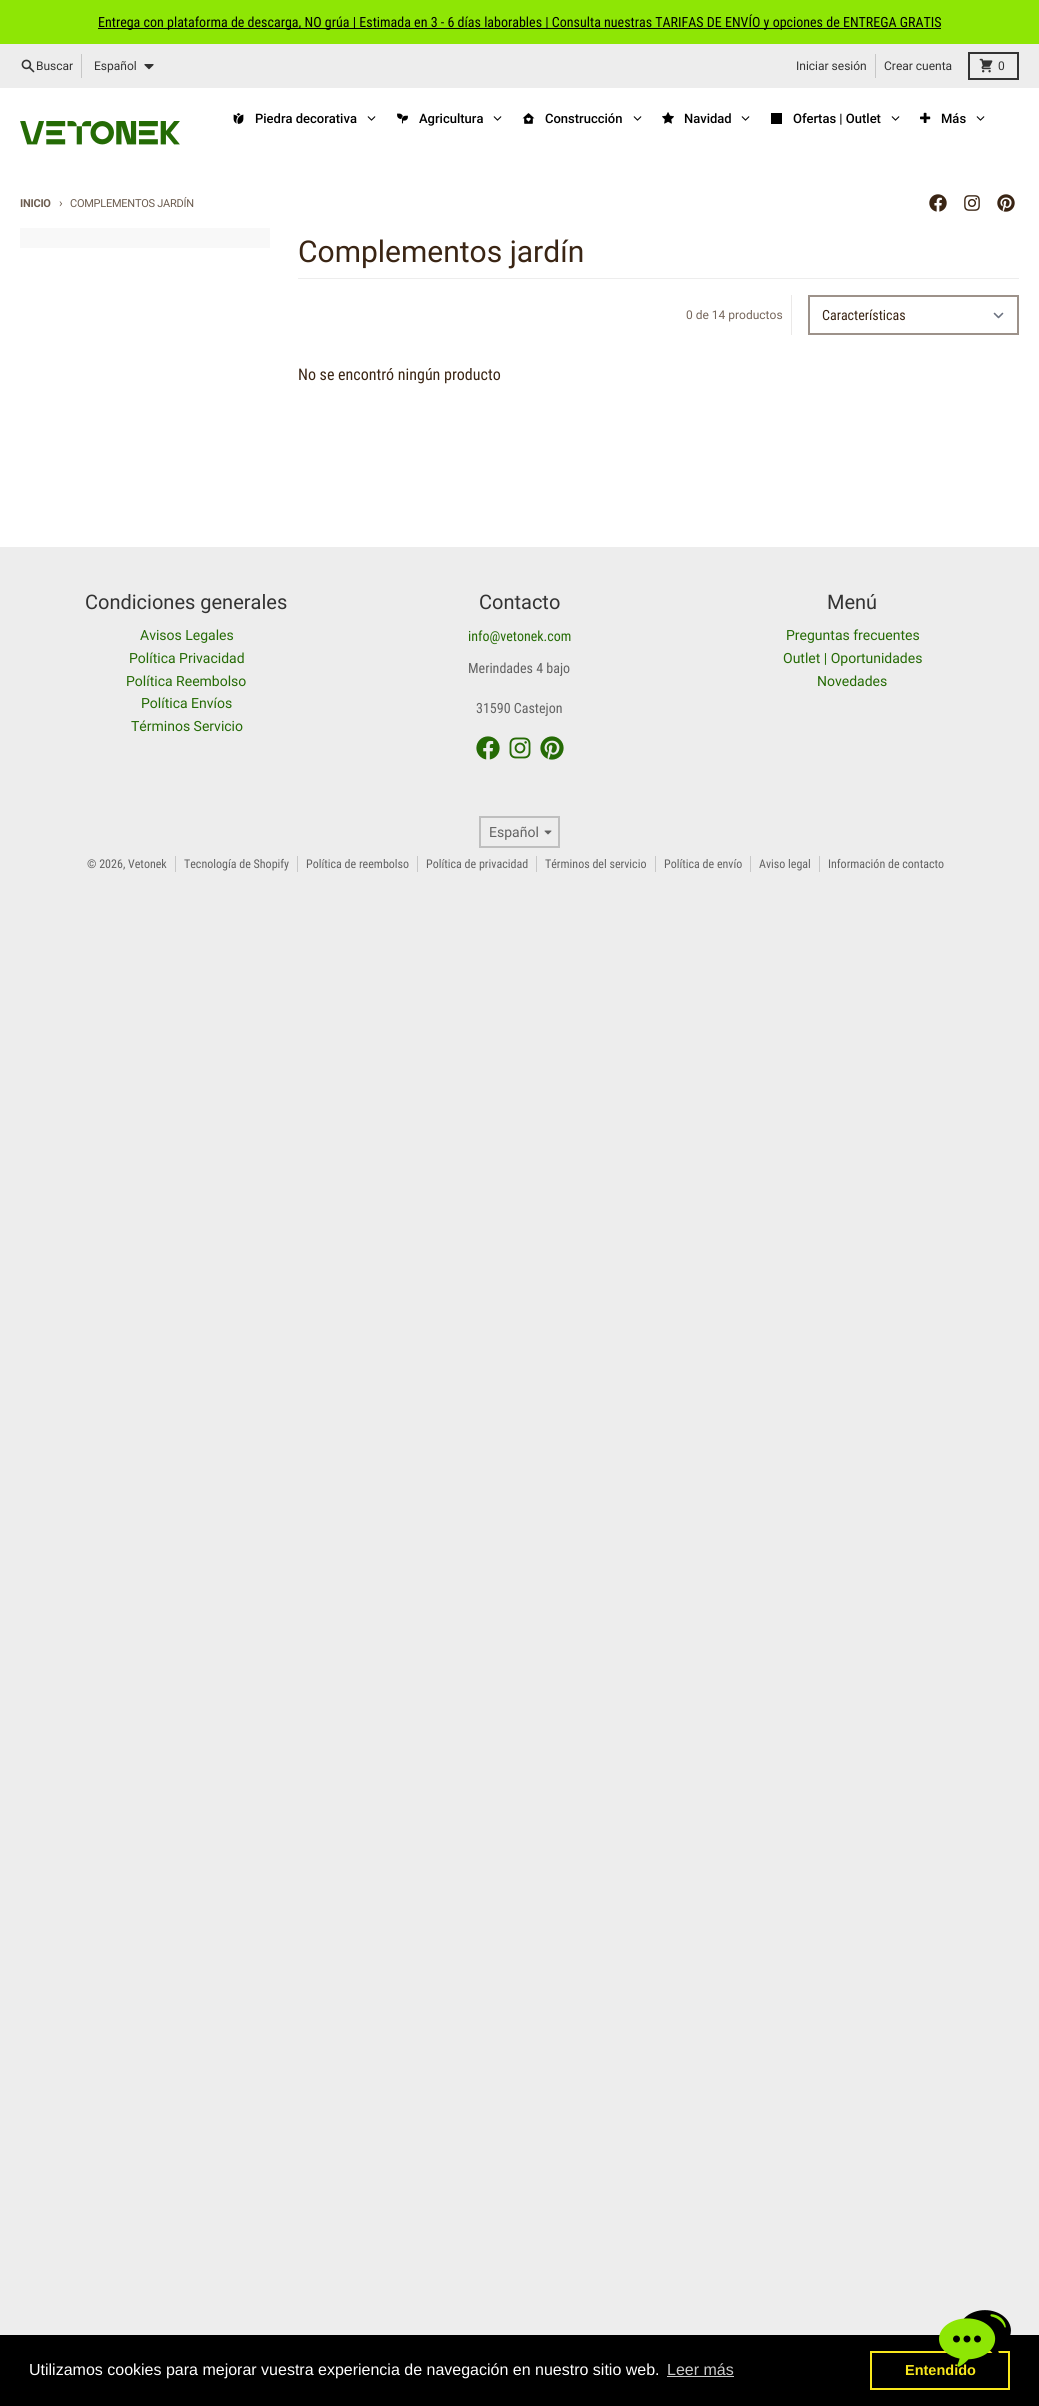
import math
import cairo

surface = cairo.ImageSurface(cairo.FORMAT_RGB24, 1039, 2406)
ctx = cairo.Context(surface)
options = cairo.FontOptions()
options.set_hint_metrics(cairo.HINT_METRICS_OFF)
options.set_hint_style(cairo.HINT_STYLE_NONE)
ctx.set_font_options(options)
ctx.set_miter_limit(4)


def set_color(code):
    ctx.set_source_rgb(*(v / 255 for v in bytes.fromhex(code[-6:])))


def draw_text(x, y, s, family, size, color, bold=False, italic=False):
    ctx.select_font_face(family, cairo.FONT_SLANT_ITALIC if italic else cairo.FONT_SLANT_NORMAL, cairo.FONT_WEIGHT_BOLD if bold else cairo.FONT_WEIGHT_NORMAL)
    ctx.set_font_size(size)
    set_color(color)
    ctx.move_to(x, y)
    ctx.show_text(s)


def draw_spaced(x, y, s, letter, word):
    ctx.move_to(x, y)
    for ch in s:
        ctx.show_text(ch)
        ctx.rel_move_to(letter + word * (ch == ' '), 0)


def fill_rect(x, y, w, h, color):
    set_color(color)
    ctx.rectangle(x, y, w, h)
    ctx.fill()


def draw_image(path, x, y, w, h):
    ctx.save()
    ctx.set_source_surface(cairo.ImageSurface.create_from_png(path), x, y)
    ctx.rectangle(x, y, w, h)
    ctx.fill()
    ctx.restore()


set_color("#ededed")
ctx.paint()
fill_rect(0, 0, 1039, 44, "#8ee605")
fill_rect(98, 28, 843, 1, "#000000")
draw_text(98, 27, "Entrega con plataforma de descarga, NO grúa | Estimada en 3 - 6 días laborables | Consulta nuestras TARIFAS DE ENVÍO y opciones de ENTREGA GRATIS", "Roboto Condensed", 14, "#000000")
draw_image("assets/img1.png", 21, 59, 14, 14)
draw_text(36, 70, "Buscar", "Roboto", 12, "#333333")
fill_rect(81, 54, 1, 24, "#c7c7c7")
draw_text(94, 70, "Español", "Roboto", 12, "#333333")
draw_image("assets/img2.png", 144, 64, 10, 6)
draw_text(796, 70, "Iniciar sesión", "Roboto", 12, "#333333")
fill_rect(875, 54, 1, 24, "#c7c7c7")
draw_text(884, 70, "Crear cuenta", "Roboto", 12, "#333333")
ctx.rectangle(969, 53, 49, 26)
ctx.stroke()
draw_image("assets/img3.png", 979, 58, 14, 15)
draw_text(998, 70, "0", "Roboto", 12, "#333333")
fill_rect(0, 88, 1039, 459, "#ffffff")
draw_image("assets/img4.png", 233, 113, 11, 11)
draw_text(255, 123, "Piedra decorativa", "Roboto Medium", 13, "#000000")
draw_image("assets/img5.png", 367, 116, 9, 5)
draw_image("assets/img6.png", 397, 113, 11, 11)
draw_text(419, 123, "Agricultura", "Roboto Medium", 13, "#000000")
draw_image("assets/img5.png", 493, 116, 9, 5)
draw_image("assets/img7.png", 522, 113, 13, 11)
draw_text(545, 123, "Construcción", "Roboto Medium", 13, "#000000")
draw_image("assets/img5.png", 633, 116, 9, 5)
draw_image("assets/img8.png", 662, 112, 12, 12)
draw_text(684, 123, "Navidad", "Roboto Medium", 13, "#000000")
draw_image("assets/img5.png", 741, 116, 9, 5)
fill_rect(771, 113, 11, 11, "#000000")
draw_text(793, 123, "Ofertas | Outlet", "Roboto Medium", 13, "#000000")
draw_image("assets/img5.png", 891, 116, 9, 5)
draw_image("assets/img9.png", 920, 112, 11, 11)
draw_text(941, 123, "Más", "Roboto Medium", 13, "#000000")
draw_image("assets/img5.png", 976, 116, 9, 5)
draw_image("assets/img10.png", 20, 121, 160, 24)
ctx.select_font_face("Roboto", cairo.FONT_SLANT_NORMAL, cairo.FONT_WEIGHT_BOLD)
ctx.set_font_size(11)
set_color("#6b5c4f")
draw_spaced(20, 207, "INICIO", -0.25, 0)
ctx.select_font_face("Roboto")
ctx.set_font_size(12)
draw_spaced(59, 207, "›", -0.25, 0)
ctx.set_font_size(11)
draw_spaced(70, 207, "COMPLEMENTOS JARDÍN", -0.25, 0)
draw_image("assets/img11.png", 929, 194, 18, 18)
draw_image("assets/img12.png", 964, 195, 16, 16)
draw_image("assets/img13.png", 997, 194, 18, 18)
fill_rect(20, 228, 250, 20, "#f8f8f8")
fill_rect(298, 278, 721, 1, "#ededed")
draw_text(298, 262, "Complementos jardín", "Roboto", 30, "#3a2514")
draw_text(686, 319, "0 de 14 productos", "Roboto", 12, "#75665b")
fill_rect(791, 295, 1, 40, "#ebe9e8")
ctx.new_path()
ctx.move_to(994.5, 313.5)
ctx.line_to(998.5, 317.5)
ctx.line_to(1002.5, 313.5)
set_color("#6b7280")
ctx.set_line_width(1.6)
ctx.set_line_cap(cairo.LINE_CAP_ROUND)
ctx.set_line_join(cairo.LINE_JOIN_ROUND)
ctx.stroke()
ctx.rectangle(809, 296, 209, 38)
set_color("#9d928a")
ctx.set_line_width(2)
ctx.set_line_cap(cairo.LINE_CAP_BUTT)
ctx.set_line_join(cairo.LINE_JOIN_MITER)
ctx.stroke()
draw_text(822, 320, "Características", "Roboto Condensed", 14, "#3a2514")
draw_text(298, 380, "No se encontró ningún producto", "Roboto Condensed", 16, "#3a2514")
draw_text(85, 609, "Condiciones generales", "Roboto", 20, "#333333")
draw_text(140, 640, "Avisos Legales", "Roboto", 14, "#256b05")
draw_text(129, 663, "Política Privacidad", "Roboto", 14, "#256b05")
draw_text(126, 686, "Política Reembolso", "Roboto", 14, "#256b05")
draw_text(141, 708, "Política Envíos", "Roboto", 14, "#256b05")
draw_text(131, 731, "Términos Servicio", "Roboto", 14, "#256b05")
draw_text(479, 609, "Contacto", "Roboto", 20, "#333333")
draw_text(468, 641, "info@vetonek.com", "Roboto Condensed", 14, "#256b05")
draw_text(468, 673, "Merindades 4 bajo", "Roboto Condensed", 14, "#626262")
draw_text(476, 713, "31590 Castejon", "Roboto Condensed", 14, "#626262")
draw_image("assets/img14.png", 476, 736, 24, 24)
draw_image("assets/img15.png", 509, 737, 22, 22)
draw_image("assets/img16.png", 540, 736, 24, 24)
draw_text(827, 609, "Menú", "Roboto", 20, "#333333")
draw_text(786, 640, "Preguntas frecuentes", "Roboto", 14, "#256b05")
draw_text(783, 663, "Outlet | Oportunidades", "Roboto", 14, "#256b05")
draw_text(817, 686, "Novedades", "Roboto", 14, "#256b05")
ctx.rectangle(480, 817, 79, 30)
set_color("#bfbfbf")
ctx.stroke()
draw_text(489, 837, "Español", "Roboto", 14, "#626262")
draw_image("assets/img17.png", 544, 830, 8, 5)
draw_text(87, 868, "© 2026, Vetonek", "Roboto Condensed", 12, "#626262")
fill_rect(175, 856, 1, 16, "#c8c8c8")
draw_text(184, 868, "Tecnología de Shopify", "Roboto Condensed", 12, "#626262")
fill_rect(297, 856, 1, 16, "#c8c8c8")
draw_text(306, 868, "Política de reembolso", "Roboto Condensed", 12, "#626262")
fill_rect(417, 856, 1, 16, "#c8c8c8")
draw_text(426, 868, "Política de privacidad", "Roboto Condensed", 12, "#626262")
fill_rect(536, 856, 1, 16, "#c8c8c8")
draw_text(545, 868, "Términos del servicio", "Roboto Condensed", 12, "#626262")
fill_rect(655, 856, 1, 16, "#c8c8c8")
draw_text(664, 868, "Política de envío", "Roboto Condensed", 12, "#626262")
fill_rect(750, 856, 1, 16, "#c8c8c8")
draw_text(759, 868, "Aviso legal", "Roboto Condensed", 12, "#626262")
fill_rect(819, 856, 1, 16, "#c8c8c8")
draw_text(828, 868, "Información de contacto", "Roboto Condensed", 12, "#626262")
fill_rect(0, 2335, 1039, 71, "#000000")
ctx.rectangle(871, 2352, 138, 37)
set_color("#f8e71c")
ctx.stroke()
draw_text(905, 2375, "Entendido", "Liberation Sans", 14.5, "#f8e71c", bold=True)
draw_image("assets/img18.png", 939, 2310, 72, 57)
draw_text(29, 2375, "Utilizamos cookies para mejorar vuestra experiencia de navegación en nuestro sitio web.", "Liberation Sans", 16, "#ffffff")
draw_text(667, 2375, "Leer más", "Liberation Sans", 16, "#cccccc")
fill_rect(667, 2376, 67, 1, "#cccccc")
surface.write_to_png("output.png")
